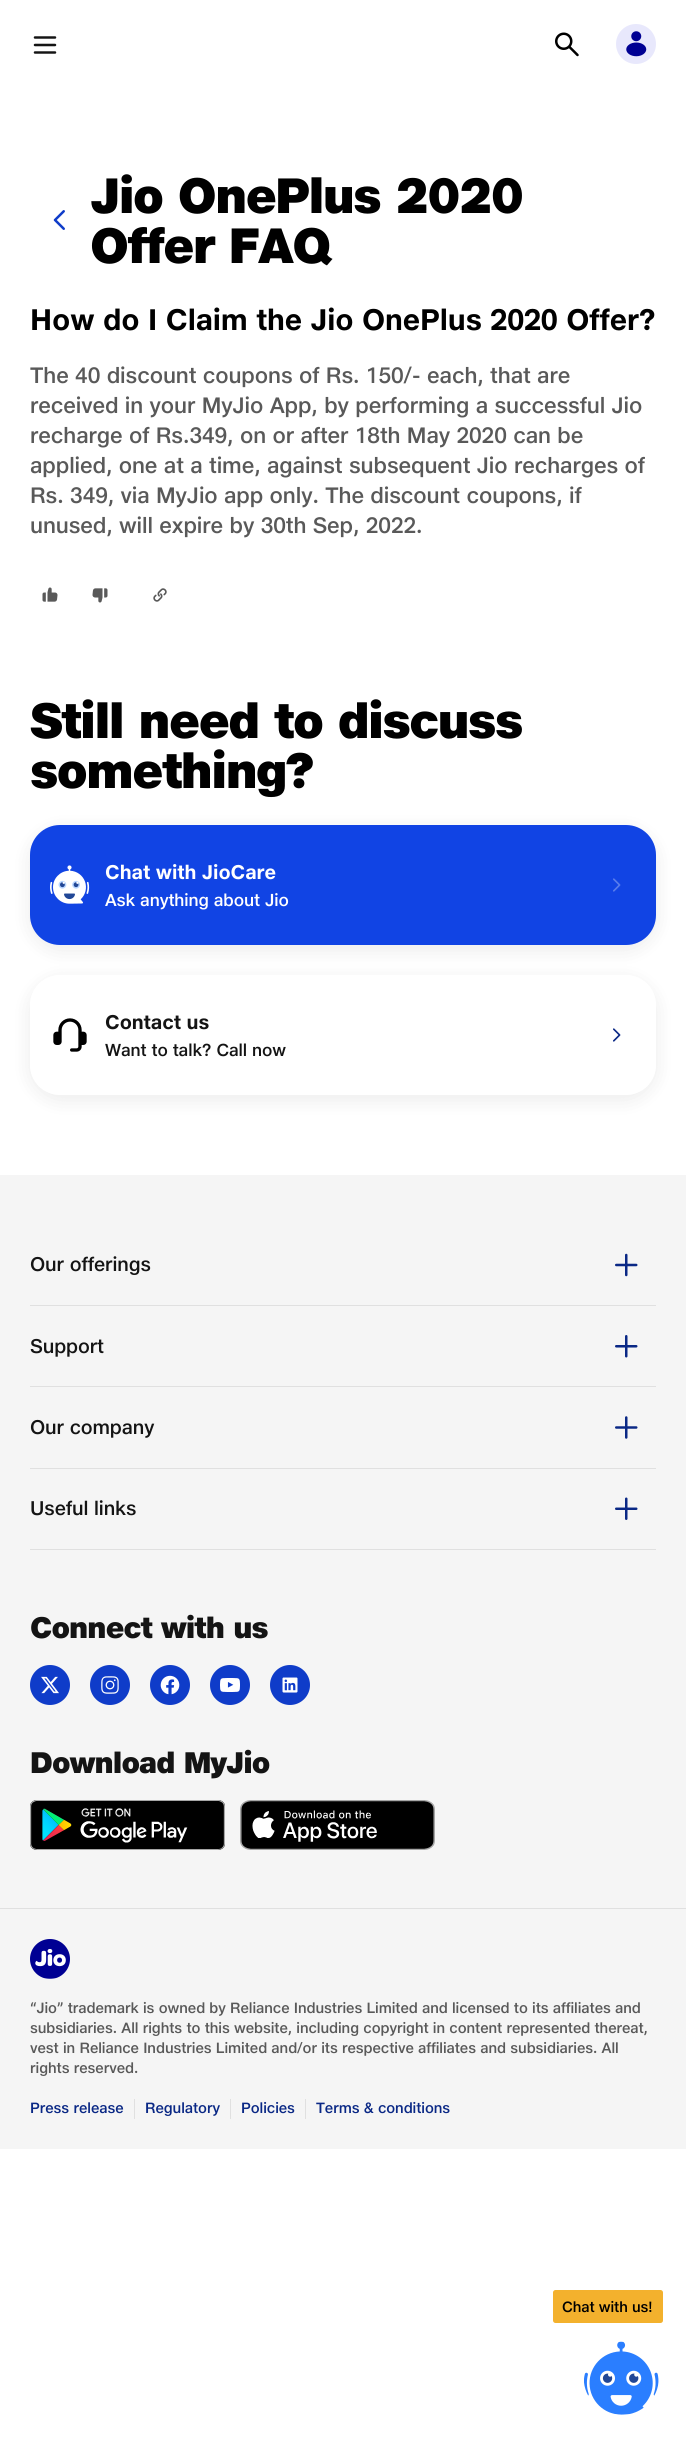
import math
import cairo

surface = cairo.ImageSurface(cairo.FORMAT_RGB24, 686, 2452)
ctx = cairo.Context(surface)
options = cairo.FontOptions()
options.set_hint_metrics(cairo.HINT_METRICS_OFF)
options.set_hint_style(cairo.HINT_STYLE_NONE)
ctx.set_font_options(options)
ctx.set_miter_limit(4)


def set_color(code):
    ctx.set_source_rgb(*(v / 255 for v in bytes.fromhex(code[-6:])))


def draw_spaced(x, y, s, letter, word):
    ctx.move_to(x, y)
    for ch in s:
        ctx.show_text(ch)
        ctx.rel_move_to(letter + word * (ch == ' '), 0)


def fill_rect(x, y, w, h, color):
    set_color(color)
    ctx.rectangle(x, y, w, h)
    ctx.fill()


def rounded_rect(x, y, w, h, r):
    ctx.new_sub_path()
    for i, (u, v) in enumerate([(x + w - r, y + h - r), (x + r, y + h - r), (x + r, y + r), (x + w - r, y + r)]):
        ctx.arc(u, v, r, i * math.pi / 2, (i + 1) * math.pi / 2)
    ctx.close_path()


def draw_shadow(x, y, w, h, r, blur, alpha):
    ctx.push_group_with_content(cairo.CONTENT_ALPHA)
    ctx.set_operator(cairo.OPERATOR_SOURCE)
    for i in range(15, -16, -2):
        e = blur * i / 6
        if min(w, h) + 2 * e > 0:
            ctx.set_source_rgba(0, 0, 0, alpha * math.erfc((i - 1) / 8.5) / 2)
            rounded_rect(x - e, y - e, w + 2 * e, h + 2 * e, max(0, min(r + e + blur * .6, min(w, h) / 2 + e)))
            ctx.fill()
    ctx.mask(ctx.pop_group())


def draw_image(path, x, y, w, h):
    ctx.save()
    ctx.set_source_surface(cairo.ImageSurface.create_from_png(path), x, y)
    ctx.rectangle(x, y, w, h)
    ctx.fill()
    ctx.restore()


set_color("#ffffff")
ctx.paint()
draw_image("assets/img1.png", 33, 36, 24, 18)
draw_image("assets/img2.png", 555, 32, 24, 25)
set_color("#e8e8fc")
ctx.arc(636, 44, 20, 0, 2 * math.pi)
ctx.fill()
draw_image("assets/img3.png", 626, 31, 21, 26)
draw_image("assets/img4.png", 53, 210, 12, 20)
ctx.select_font_face("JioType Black")
ctx.set_font_size(50)
set_color("#000000")
draw_spaced(90, 213, "Jio OnePlus 2020", -1.5, 0)
draw_spaced(90, 263, "Offer FAQ", -1.5, 0)
ctx.select_font_face("JioType", cairo.FONT_SLANT_NORMAL, cairo.FONT_WEIGHT_BOLD)
ctx.set_font_size(30)
draw_spaced(30, 330, "How do I Claim the Jio OnePlus 2020 Offer?", -0.15, 0)
ctx.select_font_face("JioType Medium")
ctx.set_font_size(22.5)
set_color("#595959")
draw_spaced(30, 383, "The 40 discount coupons of Rs. 150/- each, that are", -0.1, 0)
draw_spaced(30, 413, "received in your MyJio App, by performing a successful Jio", -0.1, 0)
draw_spaced(30, 443, "recharge of Rs.349, on or after 18th May 2020 can be", -0.1, 0)
draw_spaced(30, 473, "applied, one at a time, against subsequent Jio recharges of", -0.1, 0)
draw_spaced(30, 503, "Rs. 349, via MyJio app only. The discount coupons, if", -0.1, 0)
draw_spaced(30, 533, "unused, will expire by 30th Sep, 2022.", -0.1, 0)
draw_image("assets/img5.png", 42, 587, 16, 15)
draw_image("assets/img6.png", 92, 588, 16, 15)
draw_image("assets/img7.png", 153, 588, 14, 14)
set_color("#f3b12d")
rounded_rect(553, 2290, 110, 33, 2.5)
ctx.fill()
ctx.set_font_size(15)
set_color("#000000")
draw_spaced(562, 2312, "Chat with us!", -0.1, 0)
draw_image("assets/img8.png", 584, 2341, 75, 74)
ctx.select_font_face("JioType Black")
ctx.set_font_size(50)
draw_spaced(30, 738, "Still need to discuss", -1.5, 0)
draw_spaced(30, 788, "something?", -1.5, 0)
set_color("#000000")
draw_shadow(30, 830, 626, 120, 30, 10, 0.08)
set_color("#1144e4")
rounded_rect(30, 825, 626, 120, 30)
ctx.fill()
draw_image("assets/img9.png", 50, 865, 40, 39)
ctx.select_font_face("JioType", cairo.FONT_SLANT_NORMAL, cairo.FONT_WEIGHT_BOLD)
ctx.set_font_size(20)
set_color("#ffffff")
draw_spaced(105, 879, "Chat with JioCare", -0.1, 0)
ctx.select_font_face("JioType Medium")
ctx.set_font_size(17.5)
draw_spaced(105, 906, "Ask anything about Jio", -0.1, 0)
draw_image("assets/img10.png", 613, 878, 8, 14)
ctx.save()
ctx.set_fill_rule(cairo.FILL_RULE_EVEN_ODD)
ctx.new_path()
ctx.move_to(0, 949)
ctx.line_to(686, 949)
ctx.line_to(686, 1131)
ctx.line_to(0, 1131)
ctx.close_path()
ctx.move_to(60, 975)
ctx.line_to(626, 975)
ctx.curve_to(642.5, 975, 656, 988.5, 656, 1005)
ctx.line_to(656, 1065)
ctx.curve_to(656, 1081.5, 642.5, 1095, 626, 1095)
ctx.line_to(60, 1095)
ctx.curve_to(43.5, 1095, 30, 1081.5, 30, 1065)
ctx.line_to(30, 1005)
ctx.curve_to(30, 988.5, 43.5, 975, 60, 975)
ctx.close_path()
ctx.clip()
set_color("#000000")
draw_shadow(30, 980, 626, 120, 30, 10, 0.08)
ctx.restore()
draw_image("assets/img11.png", 53, 1018, 34, 34)
ctx.select_font_face("JioType", cairo.FONT_SLANT_NORMAL, cairo.FONT_WEIGHT_BOLD)
ctx.set_font_size(20)
set_color("#141414")
draw_spaced(105, 1029, "Contact us", -0.1, 0)
ctx.select_font_face("JioType Medium")
ctx.set_font_size(17.5)
draw_spaced(105, 1056, "Want to talk? Call now", -0.1, 0)
draw_image("assets/img12.png", 613, 1028, 8, 14)
fill_rect(0, 1175, 686, 974, "#f5f5f5")
fill_rect(30, 1305, 626, 1, "#e0e0e0")
ctx.set_font_size(20)
set_color("#141414")
draw_spaced(30, 1271, "Our offerings", -0.1, 0)
draw_image("assets/img13.png", 615, 1253, 23, 24)
fill_rect(30, 1386, 626, 1, "#e0e0e0")
set_color("#141414")
draw_spaced(30, 1353, "Support", -0.1, 0)
draw_image("assets/img14.png", 615, 1335, 23, 23)
fill_rect(30, 1468, 626, 1, "#e0e0e0")
set_color("#141414")
draw_spaced(30, 1434, "Our company", -0.1, 0)
draw_image("assets/img15.png", 615, 1416, 23, 23)
fill_rect(30, 1549, 626, 1, "#e0e0e0")
set_color("#141414")
draw_spaced(30, 1515, "Useful links", -0.1, 0)
draw_image("assets/img16.png", 615, 1497, 23, 23)
ctx.select_font_face("JioType Black")
ctx.set_font_size(30)
draw_spaced(30, 1638, "Connect with us", -0.9, 0)
set_color("#0f3cc9")
ctx.new_path()
ctx.arc(50, 1685, 20, 0, 2 * math.pi)
ctx.fill()
draw_image("assets/img17.png", 41, 1676, 18, 18)
ctx.arc(110, 1685, 20, 0, 2 * math.pi)
ctx.fill()
draw_image("assets/img18.png", 101, 1676, 18, 18)
ctx.arc(170, 1685, 20, 0, 2 * math.pi)
ctx.fill()
draw_image("assets/img19.png", 160, 1675, 20, 20)
ctx.arc(230, 1685, 20, 0, 2 * math.pi)
ctx.fill()
draw_image("assets/img20.png", 220, 1678, 20, 14)
ctx.arc(290, 1685, 20, 0, 2 * math.pi)
ctx.fill()
draw_image("assets/img21.png", 282, 1677, 16, 16)
set_color("#141414")
draw_spaced(30, 1773, "Download MyJio", -0.9, 0)
draw_image("assets/img22.png", 30, 1800, 195, 50)
draw_image("assets/img23.png", 240, 1800, 195, 50)
fill_rect(0, 1908, 686, 1, "#e0e0e0")
draw_image("assets/img24.png", 30, 1939, 40, 40)
ctx.select_font_face("JioType Medium")
ctx.set_font_size(15)
set_color("#595959")
draw_spaced(30, 2013, "“Jio” trademark is owned by Reliance Industries Limited and licensed to its affiliates and", -0.07, 0)
draw_spaced(30, 2033, "subsidiaries. All rights to this website, including copyright in content represented thereat,", -0.07, 0)
draw_spaced(30, 2053, "vest in Reliance Industries Limited and/or its respective affiliates and subsidiaries. All", -0.07, 0)
draw_spaced(30, 2073, "rights reserved.", -0.07, 0)
set_color("#0a2885")
draw_spaced(30, 2113, "Press release", -0.07, 0)
fill_rect(134, 2099, 1, 20, "#e0e0e0")
set_color("#0a2885")
draw_spaced(145, 2113, "Regulatory", -0.07, 0)
fill_rect(230, 2099, 1, 20, "#e0e0e0")
set_color("#0a2885")
draw_spaced(241, 2113, "Policies", -0.07, 0)
fill_rect(305, 2099, 1, 20, "#e0e0e0")
set_color("#0a2885")
draw_spaced(316, 2113, "Terms & conditions", -0.07, 0)
surface.write_to_png("output.png")
